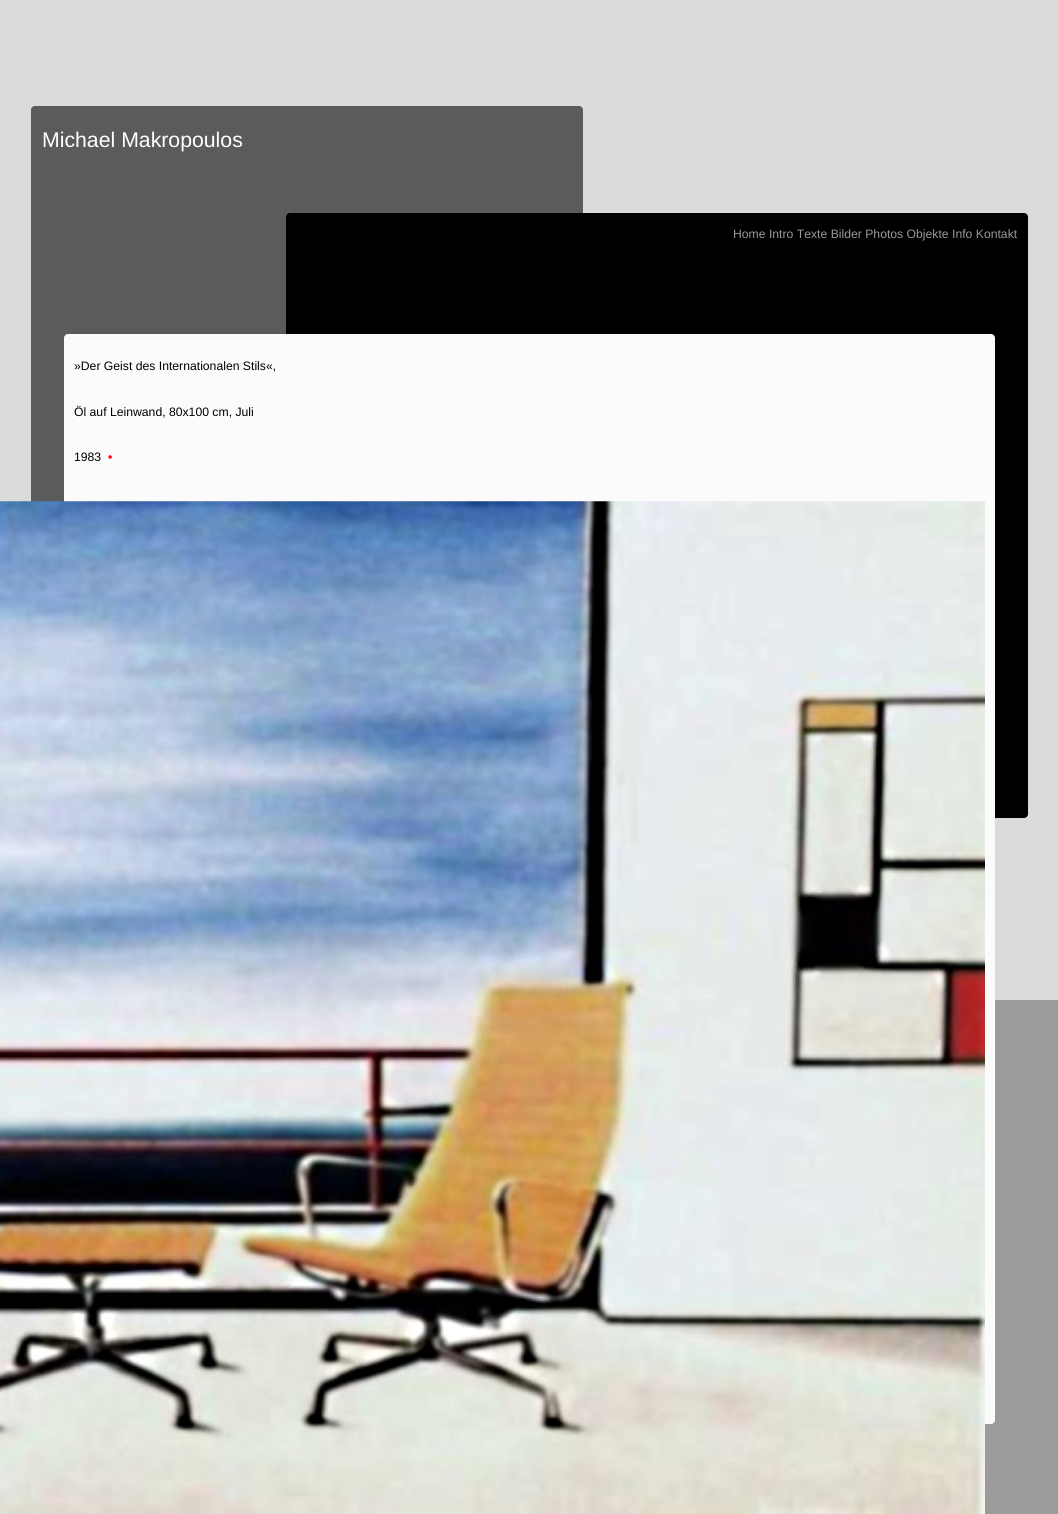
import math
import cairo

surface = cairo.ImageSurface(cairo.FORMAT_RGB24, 1058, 1514)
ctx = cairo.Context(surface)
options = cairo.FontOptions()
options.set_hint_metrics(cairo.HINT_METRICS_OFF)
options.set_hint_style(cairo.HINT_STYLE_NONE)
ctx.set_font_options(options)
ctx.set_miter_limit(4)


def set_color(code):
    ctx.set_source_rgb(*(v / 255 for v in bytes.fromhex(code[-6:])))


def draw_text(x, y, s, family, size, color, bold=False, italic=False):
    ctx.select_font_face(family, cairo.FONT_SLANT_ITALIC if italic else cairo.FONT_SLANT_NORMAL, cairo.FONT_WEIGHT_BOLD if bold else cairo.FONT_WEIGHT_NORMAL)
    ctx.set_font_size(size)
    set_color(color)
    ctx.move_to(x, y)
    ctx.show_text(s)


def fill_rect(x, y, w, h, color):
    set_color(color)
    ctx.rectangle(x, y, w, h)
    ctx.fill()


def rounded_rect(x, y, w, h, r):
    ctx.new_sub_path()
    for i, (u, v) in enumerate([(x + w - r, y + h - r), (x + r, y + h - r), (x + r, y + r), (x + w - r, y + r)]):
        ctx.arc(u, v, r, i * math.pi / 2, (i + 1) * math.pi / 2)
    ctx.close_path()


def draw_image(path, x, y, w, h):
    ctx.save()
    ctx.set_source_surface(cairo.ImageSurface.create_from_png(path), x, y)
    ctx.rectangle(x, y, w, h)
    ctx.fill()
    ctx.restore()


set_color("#9b9b9b")
ctx.paint()
fill_rect(0, 0, 1058, 1000, "#dbdbdb")
set_color("#5b5b5b")
rounded_rect(31, 106, 552, 1060, 4)
ctx.fill()
draw_text(42, 147, "Michael Makropoulos", "Liberation Sans", 21.25, "#ffffff")
set_color("#000000")
rounded_rect(286, 213, 742, 605, 4)
ctx.fill()
draw_text(733, 238, "Home Intro Texte Bilder Photos Objekte Info Kontakt", "Liberation Sans", 12.2, "#999999")
set_color("#fbfbfb")
rounded_rect(64, 334, 931, 1090, 4)
ctx.fill()
draw_text(74, 370, "»Der Geist des Internationalen Stils«,", "Liberation Sans", 12.2, "#000000")
draw_text(74, 416, "Öl auf Leinwand, 80x100 cm, Juli", "Liberation Sans", 12.2, "#000000")
draw_text(74, 461, "1983", "Liberation Sans", 12.2, "#000000")
draw_text(108, 461, "•", "Liberation Sans", 12.2, "#ff0000", bold=True)
draw_image("assets/img1.png", 0, 501, 985, 1013)
surface.write_to_png("output.png")
